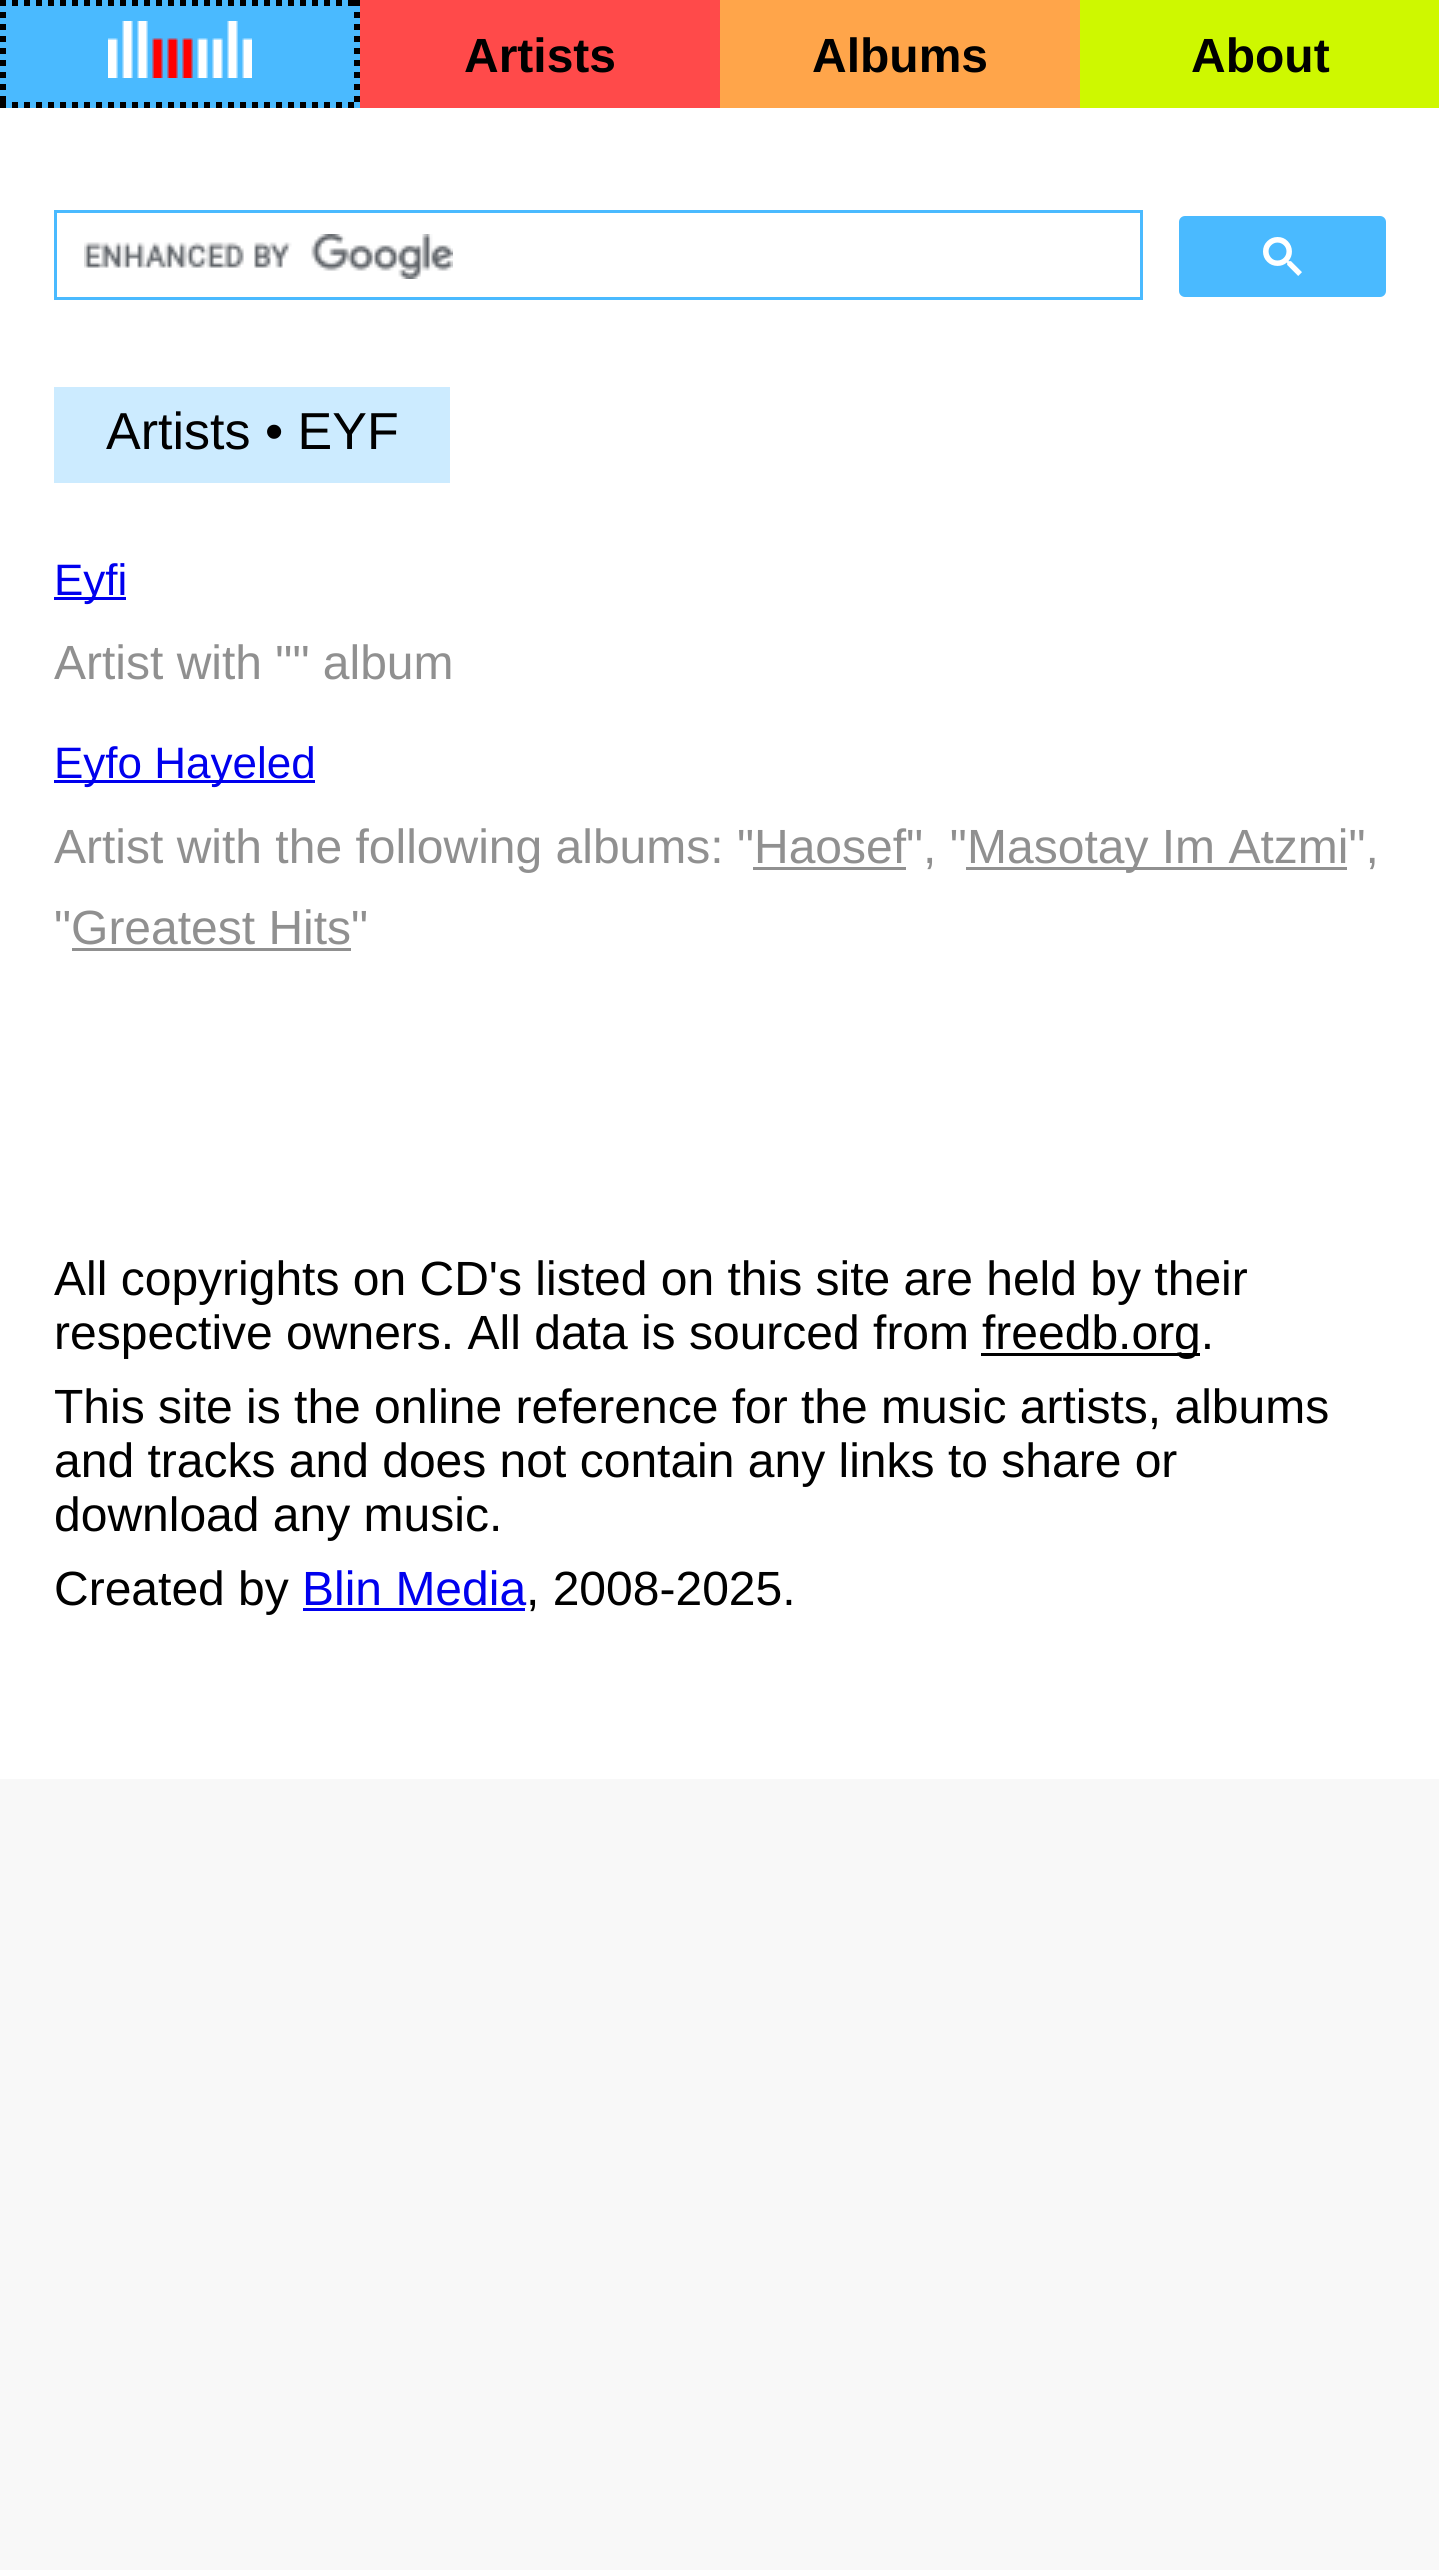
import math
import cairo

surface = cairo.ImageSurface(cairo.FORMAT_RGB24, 1439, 2570)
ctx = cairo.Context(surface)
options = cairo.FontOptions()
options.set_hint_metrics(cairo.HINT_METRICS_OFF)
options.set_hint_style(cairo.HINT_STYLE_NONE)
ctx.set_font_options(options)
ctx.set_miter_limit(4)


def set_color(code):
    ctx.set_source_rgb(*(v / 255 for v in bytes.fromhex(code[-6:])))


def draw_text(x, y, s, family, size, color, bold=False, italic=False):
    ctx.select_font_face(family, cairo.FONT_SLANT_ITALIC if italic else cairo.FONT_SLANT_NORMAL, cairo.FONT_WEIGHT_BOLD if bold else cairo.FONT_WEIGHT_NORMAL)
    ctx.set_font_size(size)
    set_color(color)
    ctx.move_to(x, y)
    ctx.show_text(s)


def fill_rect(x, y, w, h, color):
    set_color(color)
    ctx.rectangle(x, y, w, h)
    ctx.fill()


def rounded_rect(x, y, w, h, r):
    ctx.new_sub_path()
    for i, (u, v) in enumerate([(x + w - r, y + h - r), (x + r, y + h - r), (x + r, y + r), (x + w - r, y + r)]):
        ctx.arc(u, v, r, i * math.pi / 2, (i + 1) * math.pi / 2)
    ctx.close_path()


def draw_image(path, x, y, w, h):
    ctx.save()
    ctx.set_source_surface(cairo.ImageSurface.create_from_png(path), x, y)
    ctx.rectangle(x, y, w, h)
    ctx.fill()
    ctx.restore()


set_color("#f8f8f8")
ctx.paint()
fill_rect(0, 108, 1439, 1671, "#ffffff")
fill_rect(0, 0, 360, 108, "#4abaff")
ctx.new_path()
ctx.move_to(0, 3)
ctx.line_to(360, 3)
set_color("#000000")
ctx.set_line_width(6)
ctx.set_dash([6, 6])
ctx.stroke()
ctx.new_path()
ctx.move_to(357, 0)
ctx.line_to(357, 108)
ctx.stroke()
ctx.new_path()
ctx.move_to(0, 105)
ctx.line_to(360, 105)
ctx.stroke()
ctx.new_path()
ctx.move_to(3, 0)
ctx.line_to(3, 108)
ctx.stroke()
draw_image("assets/img1.png", 108, 21, 144, 57)
fill_rect(360, 0, 360, 108, "#ff4a4a")
draw_text(464, 72, "Artists", "Liberation Sans", 48, "#000000", bold=True)
fill_rect(720, 0, 360, 108, "#ffa54a")
draw_text(812, 72, "Albums", "Liberation Sans", 48, "#000000", bold=True)
fill_rect(1080, 0, 359, 108, "#cef800")
draw_text(1191, 72, "About", "Liberation Sans", 48, "#000000", bold=True)
ctx.rectangle(55.5, 211.5, 1086, 87)
set_color("#4abaff")
ctx.set_line_width(3)
ctx.set_dash([])
ctx.stroke()
draw_image("assets/img2.png", 84, 234, 369, 45)
rounded_rect(1180.5, 217.5, 204, 78, 4.5)
ctx.fill_preserve()
ctx.stroke()
draw_image("assets/img3.png", 1263, 237, 39, 39)
fill_rect(54, 387, 396, 96, "#ccebff")
draw_text(106, 449, "Artists • EYF", "Liberation Sans", 52, "#000000")
fill_rect(54, 597, 72, 3, "#0000ee")
draw_text(54, 595, "Eyfi", "Liberation Sans", 44, "#0000ee")
draw_text(54, 679, "Artist with \"\" album", "Liberation Sans", 48, "#909090")
fill_rect(54, 780, 261, 3, "#0000ee")
draw_text(54, 778, "Eyfo Hayeled", "Liberation Sans", 44, "#0000ee")
draw_text(54, 863, "Artist with the following albums: \"Haosef\", \"", "Liberation Sans", 48, "#909090")
fill_rect(753, 867, 153, 3, "#909090")
fill_rect(966, 867, 381, 3, "#909090")
draw_text(967, 863, "Masotay Im Atzmi\",", "Liberation Sans", 48, "#909090")
draw_text(54, 944, "\"Greatest Hits\"", "Liberation Sans", 48, "#909090")
fill_rect(72, 948, 279, 3, "#909090")
draw_text(54, 1295, "All copyrights on CD's listed on this site are held by their", "Liberation Sans", 48, "#000000")
draw_text(54, 1349, "respective owners. All data is sourced from", "Liberation Sans", 48, "#000000")
fill_rect(981, 1353, 219, 3, "#000000")
draw_text(982, 1349, "freedb.org.", "Liberation Sans", 48, "#000000")
draw_text(54, 1423, "This site is the online reference for the music artists, albums", "Liberation Sans", 48, "#000000")
draw_text(54, 1477, "and tracks and does not contain any links to share or", "Liberation Sans", 48, "#000000")
draw_text(54, 1531, "download any music.", "Liberation Sans", 48, "#000000")
draw_text(54, 1605, "Created by", "Liberation Sans", 48, "#000000")
draw_text(302, 1605, "Blin Media", "Liberation Sans", 48, "#0000ee")
fill_rect(303, 1608, 222, 3, "#0000ee")
draw_text(526, 1605, ", 2008-2025.", "Liberation Sans", 48, "#000000")
surface.write_to_png("output.png")
